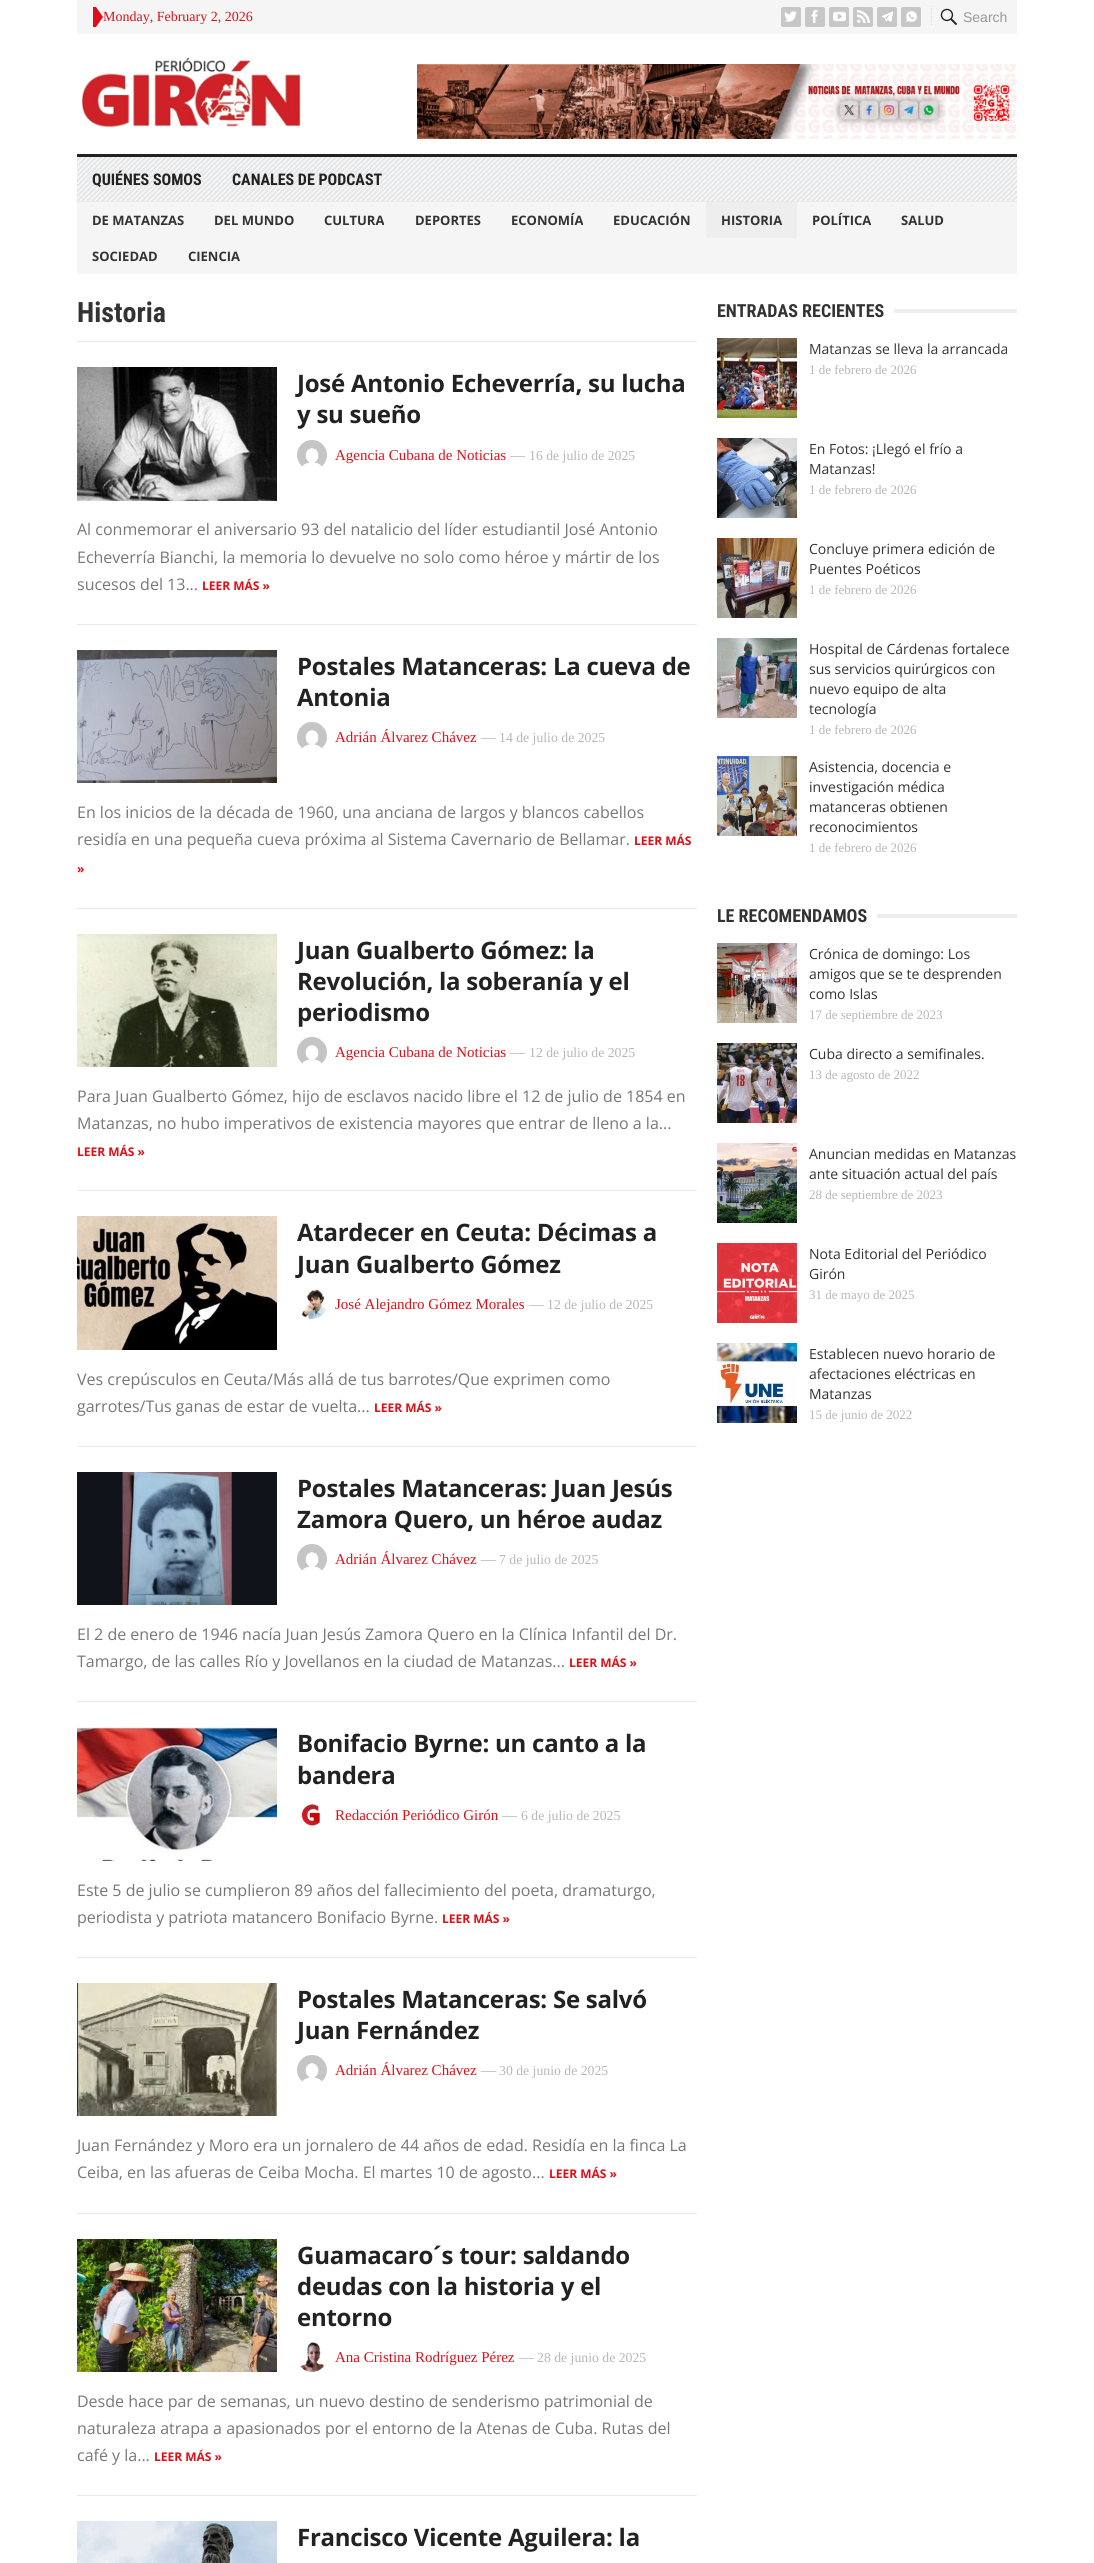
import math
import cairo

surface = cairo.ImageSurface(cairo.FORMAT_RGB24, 1094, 2563)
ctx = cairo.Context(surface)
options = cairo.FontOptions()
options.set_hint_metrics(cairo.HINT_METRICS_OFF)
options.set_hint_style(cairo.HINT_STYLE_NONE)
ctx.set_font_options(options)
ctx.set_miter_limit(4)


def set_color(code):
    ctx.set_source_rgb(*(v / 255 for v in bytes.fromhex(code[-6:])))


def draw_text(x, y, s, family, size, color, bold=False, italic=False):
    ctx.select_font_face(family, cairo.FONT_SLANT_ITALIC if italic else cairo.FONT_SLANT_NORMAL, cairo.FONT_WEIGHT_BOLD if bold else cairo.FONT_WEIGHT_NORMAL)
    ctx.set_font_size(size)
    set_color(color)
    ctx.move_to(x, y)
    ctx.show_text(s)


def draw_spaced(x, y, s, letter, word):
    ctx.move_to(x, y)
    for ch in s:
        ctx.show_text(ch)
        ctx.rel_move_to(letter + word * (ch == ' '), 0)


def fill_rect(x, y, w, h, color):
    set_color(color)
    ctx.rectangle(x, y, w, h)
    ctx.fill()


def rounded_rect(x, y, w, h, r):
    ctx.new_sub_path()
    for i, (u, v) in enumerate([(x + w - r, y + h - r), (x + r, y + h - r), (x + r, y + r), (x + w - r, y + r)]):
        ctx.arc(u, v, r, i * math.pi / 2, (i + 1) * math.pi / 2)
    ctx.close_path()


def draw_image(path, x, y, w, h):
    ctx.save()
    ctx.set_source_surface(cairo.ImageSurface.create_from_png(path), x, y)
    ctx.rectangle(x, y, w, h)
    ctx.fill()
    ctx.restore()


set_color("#ffffff")
ctx.paint()
fill_rect(77, 0, 940, 34, "#f5f5f5")
set_color("#de0f17")
ctx.new_path()
ctx.move_to(96, 27)
ctx.line_to(96, 7)
ctx.line_to(103, 17)
ctx.close_path()
ctx.fill()
fill_rect(93, 7, 3, 20, "#de0f17")
draw_text(103, 21, "Monday, February 2, 2026", "Liberation Serif", 14, "#de0f17")
set_color("#c7c7c7")
rounded_rect(781, 7, 20, 20, 2)
ctx.fill()
draw_image("assets/img1.png", 784, 11, 13, 11)
rounded_rect(805, 7, 20, 20, 2)
ctx.fill()
draw_image("assets/img2.png", 811, 10, 7, 13)
rounded_rect(829, 7, 20, 20, 2)
ctx.fill()
draw_image("assets/img3.png", 833, 11, 13, 11)
rounded_rect(853, 7, 20, 20, 2)
ctx.fill()
draw_image("assets/img4.png", 857, 10, 13, 13)
rounded_rect(877, 7, 20, 20, 2)
ctx.fill()
draw_image("assets/img5.png", 881, 11, 13, 11)
rounded_rect(901, 7, 20, 20, 2)
ctx.fill()
draw_image("assets/img6.png", 906, 11, 12, 12)
ctx.new_path()
ctx.move_to(931.5, 6)
ctx.line_to(931.5, 26)
set_color("#dddddd")
ctx.set_line_width(1)
ctx.set_dash([1, 1])
ctx.stroke()
draw_image("assets/img7.png", 940, 8, 18, 18)
draw_text(963, 22, "Search", "Liberation Sans", 14, "#999999")
draw_image("assets/img8.png", 82, 57, 219, 71)
draw_image("assets/img9.png", 417, 64, 600, 75)
draw_image("assets/img10.png", 77, 157, 940, 44)
fill_rect(77, 154, 940, 3, "#222222")
fill_rect(77, 201, 940, 1, "#e9e9e9")
draw_text(92, 185, "QUIÉNES SOMOS", "Roboto Condensed", 16, "#222222", bold=True)
draw_text(232, 185, "CANALES DE PODCAST", "Roboto Condensed", 16, "#222222", bold=True)
fill_rect(77, 202, 940, 72, "#f5f5f5")
draw_text(92, 225, "DE MATANZAS", "Open Sans", 13, "#333333", bold=True)
draw_text(214, 225, "DEL MUNDO", "Open Sans", 13, "#333333", bold=True)
draw_text(324, 225, "CULTURA", "Open Sans", 13, "#333333", bold=True)
draw_text(415, 225, "DEPORTES", "Open Sans", 13, "#333333", bold=True)
draw_text(511, 225, "ECONOMÍA", "Open Sans", 13, "#333333", bold=True)
draw_text(613, 225, "EDUCACIÓN", "Open Sans", 13, "#333333", bold=True)
fill_rect(706, 202, 91, 36, "#eeeeee")
draw_text(721, 225, "HISTORIA", "Open Sans", 13, "#333333", bold=True)
draw_text(812, 225, "POLÍTICA", "Open Sans", 13, "#333333", bold=True)
draw_text(901, 225, "SALUD", "Open Sans", 13, "#333333", bold=True)
draw_text(92, 261, "SOCIEDAD", "Open Sans", 13, "#333333", bold=True)
draw_text(188, 261, "CIENCIA", "Open Sans", 13, "#333333", bold=True)
fill_rect(77, 341, 620, 1, "#e9e9e9")
draw_text(77, 322, "Historia", "Roboto Condensed", 28, "#333333", bold=True)
fill_rect(77, 624, 620, 1, "#e9e9e9")
draw_image("assets/img11.png", 77, 367, 200, 134)
ctx.select_font_face("Open Sans", cairo.FONT_SLANT_NORMAL, cairo.FONT_WEIGHT_BOLD)
ctx.set_font_size(24)
set_color("#222222")
draw_spaced(297, 392, "José Antonio Echeverría, su lucha", -0.25, 0)
draw_spaced(297, 423, "y su sueño", -0.25, 0)
draw_image("assets/img12.png", 297, 440, 30, 27)
draw_text(335, 460, "Agencia Cubana de Noticias", "Liberation Serif", 15, "#de0f17")
draw_text(510, 460, "—", "Liberation Serif", 15, "#b7b7b7")
draw_text(529, 460, "16 de julio de 2025", "Liberation Serif", 13.75, "#b7b7b7")
draw_text(77, 535, "Al conmemorar el aniversario 93 del natalicio del líder estudiantil José Antonio", "Open Sans", 16, "#777777")
draw_text(77, 563, "Echeverría Bianchi, la memoria lo devuelve no solo como héroe y mártir de los", "Open Sans", 16, "#777777")
draw_text(77, 590, "sucesos del 13...", "Open Sans", 16, "#777777")
draw_text(202, 590, "LEER MÁS »", "Open Sans", 12, "#de0f17", bold=True)
fill_rect(77, 908, 620, 1, "#e9e9e9")
draw_image("assets/img13.png", 77, 650, 200, 133)
ctx.set_font_size(24)
set_color("#222222")
draw_spaced(297, 675, "Postales Matanceras: La cueva de", -0.25, 0)
draw_spaced(297, 706, "Antonia", -0.25, 0)
draw_image("assets/img12.png", 297, 722, 30, 27)
draw_text(335, 742, "Adrián Álvarez Chávez", "Liberation Serif", 15, "#de0f17")
draw_text(481, 742, "—", "Liberation Serif", 15, "#b7b7b7")
draw_text(499, 742, "14 de julio de 2025", "Liberation Serif", 13.75, "#b7b7b7")
draw_text(77, 818, "En los inicios de la década de 1960, una anciana de largos y blancos cabellos", "Open Sans", 16, "#777777")
draw_text(77, 845, "residía en una pequeña cueva próxima al Sistema Cavernario de Bellamar.", "Open Sans", 16, "#777777")
draw_text(634, 845, "LEER MÁS", "Open Sans", 12, "#de0f17", bold=True)
draw_text(77, 873, "»", "Open Sans", 12, "#de0f17", bold=True)
fill_rect(77, 1190, 620, 1, "#e9e9e9")
draw_image("assets/img14.png", 77, 934, 200, 133)
ctx.set_font_size(24)
set_color("#222222")
draw_spaced(297, 959, "Juan Gualberto Gómez: la", -0.25, 0)
draw_spaced(297, 990, "Revolución, la soberanía y el", -0.25, 0)
draw_spaced(297, 1021, "periodismo", -0.25, 0)
draw_image("assets/img15.png", 297, 1037, 30, 27)
draw_text(335, 1057, "Agencia Cubana de Noticias", "Liberation Serif", 15, "#de0f17")
draw_text(510, 1057, "—", "Liberation Serif", 15, "#b7b7b7")
draw_text(529, 1057, "12 de julio de 2025", "Liberation Serif", 13.75, "#b7b7b7")
draw_text(77, 1102, "Para Juan Gualberto Gómez, hijo de esclavos nacido libre el 12 de julio de 1854 en", "Open Sans", 16, "#777777")
draw_text(77, 1129, "Matanzas, no hubo imperativos de existencia mayores que entrar de lleno a la...", "Open Sans", 16, "#777777")
draw_text(77, 1156, "LEER MÁS »", "Open Sans", 12, "#de0f17", bold=True)
fill_rect(77, 1446, 620, 1, "#e9e9e9")
draw_image("assets/img16.png", 77, 1216, 200, 134)
ctx.set_font_size(24)
set_color("#222222")
draw_spaced(297, 1241, "Atardecer en Ceuta: Décimas a", -0.25, 0)
draw_spaced(297, 1273, "Juan Gualberto Gómez", -0.25, 0)
draw_image("assets/img17.png", 301, 1289, 25, 30)
draw_text(335, 1309, "José Alejandro Gómez Morales", "Liberation Serif", 15, "#de0f17")
draw_text(529, 1309, "—", "Liberation Serif", 15, "#b7b7b7")
draw_text(547, 1309, "12 de julio de 2025", "Liberation Serif", 13.75, "#b7b7b7")
draw_text(77, 1385, "Ves crepúsculos en Ceuta/Más allá de tus barrotes/Que exprimen como", "Open Sans", 16, "#777777")
draw_text(77, 1412, "garrotes/Tus ganas de estar de vuelta...", "Open Sans", 16, "#777777")
draw_text(374, 1412, "LEER MÁS »", "Open Sans", 12, "#de0f17", bold=True)
fill_rect(77, 1701, 620, 1, "#e9e9e9")
draw_image("assets/img18.png", 77, 1472, 200, 133)
ctx.set_font_size(24)
set_color("#222222")
draw_spaced(297, 1497, "Postales Matanceras: Juan Jesús", -0.25, 0)
draw_spaced(297, 1528, "Zamora Quero, un héroe audaz", -0.25, 0)
draw_image("assets/img12.png", 297, 1544, 30, 27)
draw_text(335, 1564, "Adrián Álvarez Chávez", "Liberation Serif", 15, "#de0f17")
draw_text(481, 1564, "—", "Liberation Serif", 15, "#b7b7b7")
draw_text(499, 1564, "7 de julio de 2025", "Liberation Serif", 13.75, "#b7b7b7")
draw_text(77, 1640, "El 2 de enero de 1946 nacía Juan Jesús Zamora Quero en la Clínica Infantil del Dr.", "Open Sans", 16, "#777777")
draw_text(77, 1667, "Tamargo, de las calles Río y Jovellanos en la ciudad de Matanzas...", "Open Sans", 16, "#777777")
draw_text(569, 1667, "LEER MÁS »", "Open Sans", 12, "#de0f17", bold=True)
fill_rect(77, 1957, 620, 1, "#e9e9e9")
draw_image("assets/img19.png", 77, 1727, 200, 134)
ctx.set_font_size(24)
set_color("#222222")
draw_spaced(297, 1752, "Bonifacio Byrne: un canto a la", -0.25, 0)
draw_spaced(297, 1784, "bandera", -0.25, 0)
draw_image("assets/img20.png", 301, 1804, 19, 22)
draw_text(335, 1820, "Redacción Periódico Girón", "Liberation Serif", 15, "#de0f17")
draw_text(502, 1820, "—", "Liberation Serif", 15, "#b7b7b7")
draw_text(521, 1820, "6 de julio de 2025", "Liberation Serif", 13.75, "#b7b7b7")
draw_text(77, 1896, "Este 5 de julio se cumplieron 89 años del fallecimiento del poeta, dramaturgo,", "Open Sans", 16, "#777777")
draw_text(77, 1923, "periodista y patriota matancero Bonifacio Byrne.", "Open Sans", 16, "#777777")
draw_text(442, 1923, "LEER MÁS »", "Open Sans", 12, "#de0f17", bold=True)
fill_rect(77, 2213, 620, 1, "#e9e9e9")
draw_image("assets/img21.png", 77, 1983, 200, 133)
ctx.set_font_size(24)
set_color("#222222")
draw_spaced(297, 2008, "Postales Matanceras: Se salvó", -0.25, 0)
draw_spaced(297, 2039, "Juan Fernández", -0.25, 0)
draw_image("assets/img12.png", 297, 2055, 30, 27)
draw_text(335, 2075, "Adrián Álvarez Chávez", "Liberation Serif", 15, "#de0f17")
draw_text(481, 2075, "—", "Liberation Serif", 15, "#b7b7b7")
draw_text(499, 2075, "30 de junio de 2025", "Liberation Serif", 13.75, "#b7b7b7")
draw_text(77, 2151, "Juan Fernández y Moro era un jornalero de 44 años de edad. Residía en la finca La", "Open Sans", 16, "#777777")
draw_text(77, 2178, "Ceiba, en las afueras de Ceiba Mocha. El martes 10 de agosto...", "Open Sans", 16, "#777777")
draw_text(549, 2178, "LEER MÁS »", "Open Sans", 12, "#de0f17", bold=True)
fill_rect(77, 2495, 620, 1, "#e9e9e9")
draw_image("assets/img22.png", 77, 2239, 200, 133)
ctx.set_font_size(24)
set_color("#222222")
draw_spaced(297, 2264, "Guamacaro´s tour: saldando", -0.25, 0)
draw_spaced(297, 2295, "deudas con la historia y el", -0.25, 0)
draw_spaced(297, 2326, "entorno", -0.25, 0)
draw_image("assets/img23.png", 300, 2342, 26, 30)
draw_text(335, 2362, "Ana Cristina Rodríguez Pérez", "Liberation Serif", 15, "#de0f17")
draw_text(519, 2362, "—", "Liberation Serif", 15, "#b7b7b7")
draw_text(537, 2362, "28 de junio de 2025", "Liberation Serif", 13.75, "#b7b7b7")
draw_text(77, 2407, "Desde hace par de semanas, un nuevo destino de senderismo patrimonial de", "Open Sans", 16, "#777777")
draw_text(77, 2434, "naturaleza atrapa a apasionados por el entorno de la Atenas de Cuba. Rutas del", "Open Sans", 16, "#777777")
draw_text(77, 2461, "café y la...", "Open Sans", 16, "#777777")
draw_text(154, 2461, "LEER MÁS »", "Open Sans", 12, "#de0f17", bold=True)
draw_image("assets/img24.png", 77, 2521, 200, 42)
ctx.set_font_size(24)
set_color("#222222")
draw_spaced(297, 2546, "Francisco Vicente Aguilera: la", -0.25, 0)
draw_text(717, 317, "ENTRADAS RECIENTES", "Roboto Condensed", 18, "#333333", bold=True)
fill_rect(894, 309, 123, 4, "#eeeeee")
draw_image("assets/img25.png", 717, 338, 80, 80)
draw_text(809, 354, "Matanzas se lleva la arrancada", "Open Sans", 14, "#333333")
draw_text(809, 374, "1 de febrero de 2026", "Liberation Serif", 13, "#b7b7b7")
draw_image("assets/img26.png", 717, 438, 80, 80)
draw_text(809, 454, "En Fotos: ¡Llegó el frío a", "Open Sans", 14, "#333333")
draw_text(809, 474, "Matanzas!", "Open Sans", 14, "#333333")
draw_text(809, 494, "1 de febrero de 2026", "Liberation Serif", 13, "#b7b7b7")
draw_image("assets/img27.png", 717, 538, 80, 80)
draw_text(809, 554, "Concluye primera edición de", "Open Sans", 14, "#333333")
draw_text(809, 574, "Puentes Poéticos", "Open Sans", 14, "#333333")
draw_text(809, 594, "1 de febrero de 2026", "Liberation Serif", 13, "#b7b7b7")
draw_image("assets/img28.png", 717, 638, 80, 80)
draw_text(809, 654, "Hospital de Cárdenas fortalece", "Open Sans", 14, "#333333")
draw_text(809, 674, "sus servicios quirúrgicos con", "Open Sans", 14, "#333333")
draw_text(809, 694, "nuevo equipo de alta", "Open Sans", 14, "#333333")
draw_text(809, 714, "tecnología", "Open Sans", 14, "#333333")
draw_text(809, 734, "1 de febrero de 2026", "Liberation Serif", 13, "#b7b7b7")
draw_image("assets/img29.png", 717, 756, 80, 80)
draw_text(809, 772, "Asistencia, docencia e", "Open Sans", 14, "#333333")
draw_text(809, 792, "investigación médica", "Open Sans", 14, "#333333")
draw_text(809, 812, "matanceras obtienen", "Open Sans", 14, "#333333")
draw_text(809, 832, "reconocimientos", "Open Sans", 14, "#333333")
draw_text(809, 852, "1 de febrero de 2026", "Liberation Serif", 13, "#b7b7b7")
draw_text(717, 922, "LE RECOMENDAMOS", "Roboto Condensed", 18, "#333333", bold=True)
fill_rect(877, 914, 140, 4, "#eeeeee")
draw_image("assets/img30.png", 717, 943, 80, 80)
draw_text(809, 959, "Crónica de domingo: Los", "Open Sans", 14, "#333333")
draw_text(809, 979, "amigos que se te desprenden", "Open Sans", 14, "#333333")
draw_text(809, 999, "como Islas", "Open Sans", 14, "#333333")
draw_text(809, 1019, "17 de septiembre de 2023", "Liberation Serif", 13, "#b7b7b7")
draw_image("assets/img31.png", 717, 1043, 80, 80)
draw_text(809, 1059, "Cuba directo a semifinales.", "Open Sans", 14, "#333333")
draw_text(809, 1079, "13 de agosto de 2022", "Liberation Serif", 13, "#b7b7b7")
draw_image("assets/img32.png", 717, 1143, 80, 80)
draw_text(809, 1159, "Anuncian medidas en Matanzas", "Open Sans", 14, "#333333")
draw_text(809, 1179, "ante situación actual del país", "Open Sans", 14, "#333333")
draw_text(809, 1199, "28 de septiembre de 2023", "Liberation Serif", 13, "#b7b7b7")
draw_image("assets/img33.png", 717, 1243, 80, 80)
draw_text(809, 1259, "Nota Editorial del Periódico", "Open Sans", 14, "#333333")
draw_text(809, 1279, "Girón", "Open Sans", 14, "#333333")
draw_text(809, 1299, "31 de mayo de 2025", "Liberation Serif", 13, "#b7b7b7")
draw_image("assets/img34.png", 717, 1343, 80, 80)
draw_text(809, 1359, "Establecen nuevo horario de", "Open Sans", 14, "#333333")
draw_text(809, 1379, "afectaciones eléctricas en", "Open Sans", 14, "#333333")
draw_text(809, 1399, "Matanzas", "Open Sans", 14, "#333333")
draw_text(809, 1419, "15 de junio de 2022", "Liberation Serif", 13, "#b7b7b7")
surface.write_to_png("output.png")
